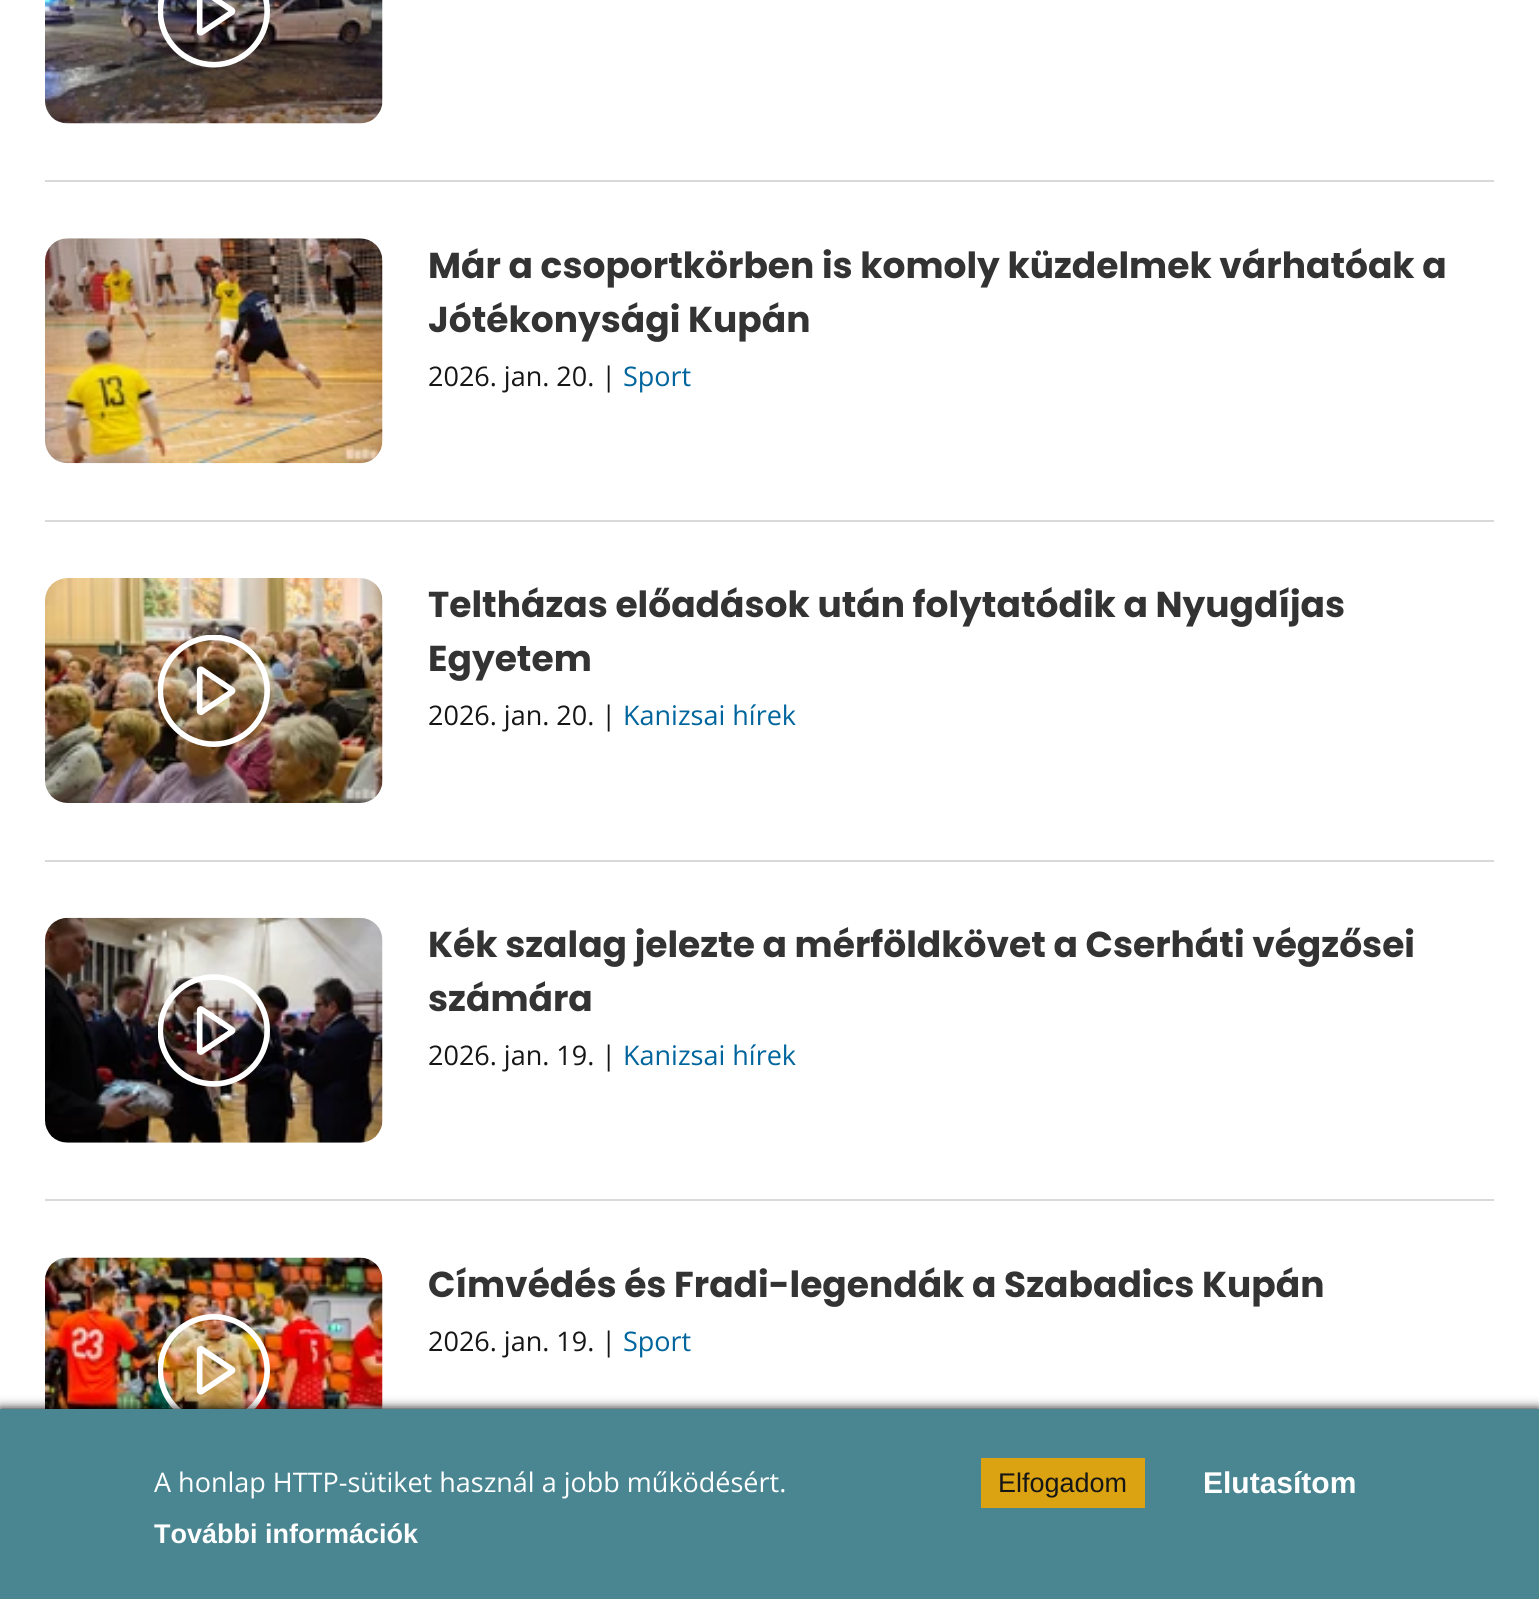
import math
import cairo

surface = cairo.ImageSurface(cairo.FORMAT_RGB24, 1539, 1599)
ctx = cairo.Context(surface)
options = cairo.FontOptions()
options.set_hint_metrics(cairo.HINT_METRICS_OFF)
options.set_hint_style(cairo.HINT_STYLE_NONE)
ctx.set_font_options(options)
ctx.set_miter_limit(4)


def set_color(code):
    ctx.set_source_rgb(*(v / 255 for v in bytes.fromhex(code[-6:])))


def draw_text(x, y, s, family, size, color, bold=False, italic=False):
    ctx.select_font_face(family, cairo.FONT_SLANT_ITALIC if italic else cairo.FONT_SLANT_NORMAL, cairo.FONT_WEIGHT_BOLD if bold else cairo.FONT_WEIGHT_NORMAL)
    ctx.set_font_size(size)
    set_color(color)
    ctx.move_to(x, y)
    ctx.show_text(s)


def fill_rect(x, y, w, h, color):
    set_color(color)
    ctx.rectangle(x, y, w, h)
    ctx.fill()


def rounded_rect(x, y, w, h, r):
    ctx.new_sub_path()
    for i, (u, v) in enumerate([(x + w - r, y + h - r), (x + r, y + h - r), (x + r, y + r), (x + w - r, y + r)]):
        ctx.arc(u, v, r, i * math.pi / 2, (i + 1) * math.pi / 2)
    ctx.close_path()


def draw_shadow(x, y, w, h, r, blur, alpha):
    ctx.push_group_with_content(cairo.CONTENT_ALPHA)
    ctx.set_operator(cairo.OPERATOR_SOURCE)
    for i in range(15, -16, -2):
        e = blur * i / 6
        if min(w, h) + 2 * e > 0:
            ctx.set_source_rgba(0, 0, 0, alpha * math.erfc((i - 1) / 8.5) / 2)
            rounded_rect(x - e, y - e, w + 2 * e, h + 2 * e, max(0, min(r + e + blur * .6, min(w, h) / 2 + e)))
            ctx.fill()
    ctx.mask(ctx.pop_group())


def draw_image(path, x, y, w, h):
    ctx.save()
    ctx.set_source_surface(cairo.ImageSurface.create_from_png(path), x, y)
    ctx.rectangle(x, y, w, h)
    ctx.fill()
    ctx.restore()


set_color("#ffffff")
ctx.paint()
fill_rect(45, 180, 1449, 2, "#d9d9d9")
draw_image("assets/img1.png", 45, 0, 338, 124)
draw_image("assets/img2.png", 158, 0, 112, 68)
fill_rect(45, 520, 1449, 2, "#d9d9d9")
draw_image("assets/img3.png", 45, 238, 338, 226)
draw_text(428, 278, "Már a csoportkörben is komoly küzdelmek várhatóak a", "Poppins", 36, "#333333", bold=True)
draw_text(428, 332, "Jótékonysági Kupán", "Poppins", 36, "#333333", bold=True)
draw_text(428, 386, "2026. jan. 20. |", "Open Sans", 27, "#161616")
draw_text(623, 386, "Sport", "Open Sans", 27, "#00659d")
fill_rect(45, 860, 1449, 2, "#d9d9d9")
draw_image("assets/img4.png", 45, 578, 338, 225)
draw_image("assets/img5.png", 158, 635, 112, 112)
draw_text(428, 617, "Teltházas előadások után folytatódik a Nyugdíjas", "Poppins", 36, "#333333", bold=True)
draw_text(428, 671, "Egyetem", "Poppins", 36, "#333333", bold=True)
draw_text(428, 725, "2026. jan. 20. |", "Open Sans", 27, "#161616")
draw_text(623, 725, "Kanizsai hírek", "Open Sans", 27, "#00659d")
fill_rect(45, 1199, 1449, 2, "#d9d9d9")
draw_image("assets/img6.png", 45, 917, 338, 226)
draw_image("assets/img7.png", 158, 974, 112, 113)
draw_text(428, 957, "Kék szalag jelezte a mérföldkövet a Cserháti végzősei", "Poppins", 36, "#333333", bold=True)
draw_text(428, 1011, "számára", "Poppins", 36, "#333333", bold=True)
draw_text(428, 1065, "2026. jan. 19. |", "Open Sans", 27, "#161616")
draw_text(623, 1065, "Kanizsai hírek", "Open Sans", 27, "#00659d")
draw_image("assets/img8.png", 45, 1257, 338, 152)
draw_image("assets/img9.png", 158, 1314, 112, 95)
draw_text(428, 1297, "Címvédés és Fradi-legendák a Szabadics Kupán", "Poppins", 36, "#333333", bold=True)
draw_text(428, 1351, "2026. jan. 19. |", "Open Sans", 27, "#161616")
draw_text(623, 1351, "Sport", "Open Sans", 27, "#00659d")
set_color("#000000")
draw_shadow(0, 1409, 1539, 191, 0, 5.5, 1)
fill_rect(0, 1409, 1539, 190, "#4a8692")
draw_text(154, 1492, "A honlap HTTP-sütiket használ a jobb működésért.", "Open Sans", 27, "#ffffff")
draw_text(154, 1543, "További információk", "Liberation Sans", 27, "#ffffff", bold=True)
fill_rect(981, 1458, 164, 50, "#dba312")
draw_text(998, 1492, "Elfogadom", "Liberation Sans", 27, "#161616")
draw_text(1203, 1493, "Elutasítom", "Liberation Sans", 30, "#ffffff", bold=True)
surface.write_to_png("output.png")
